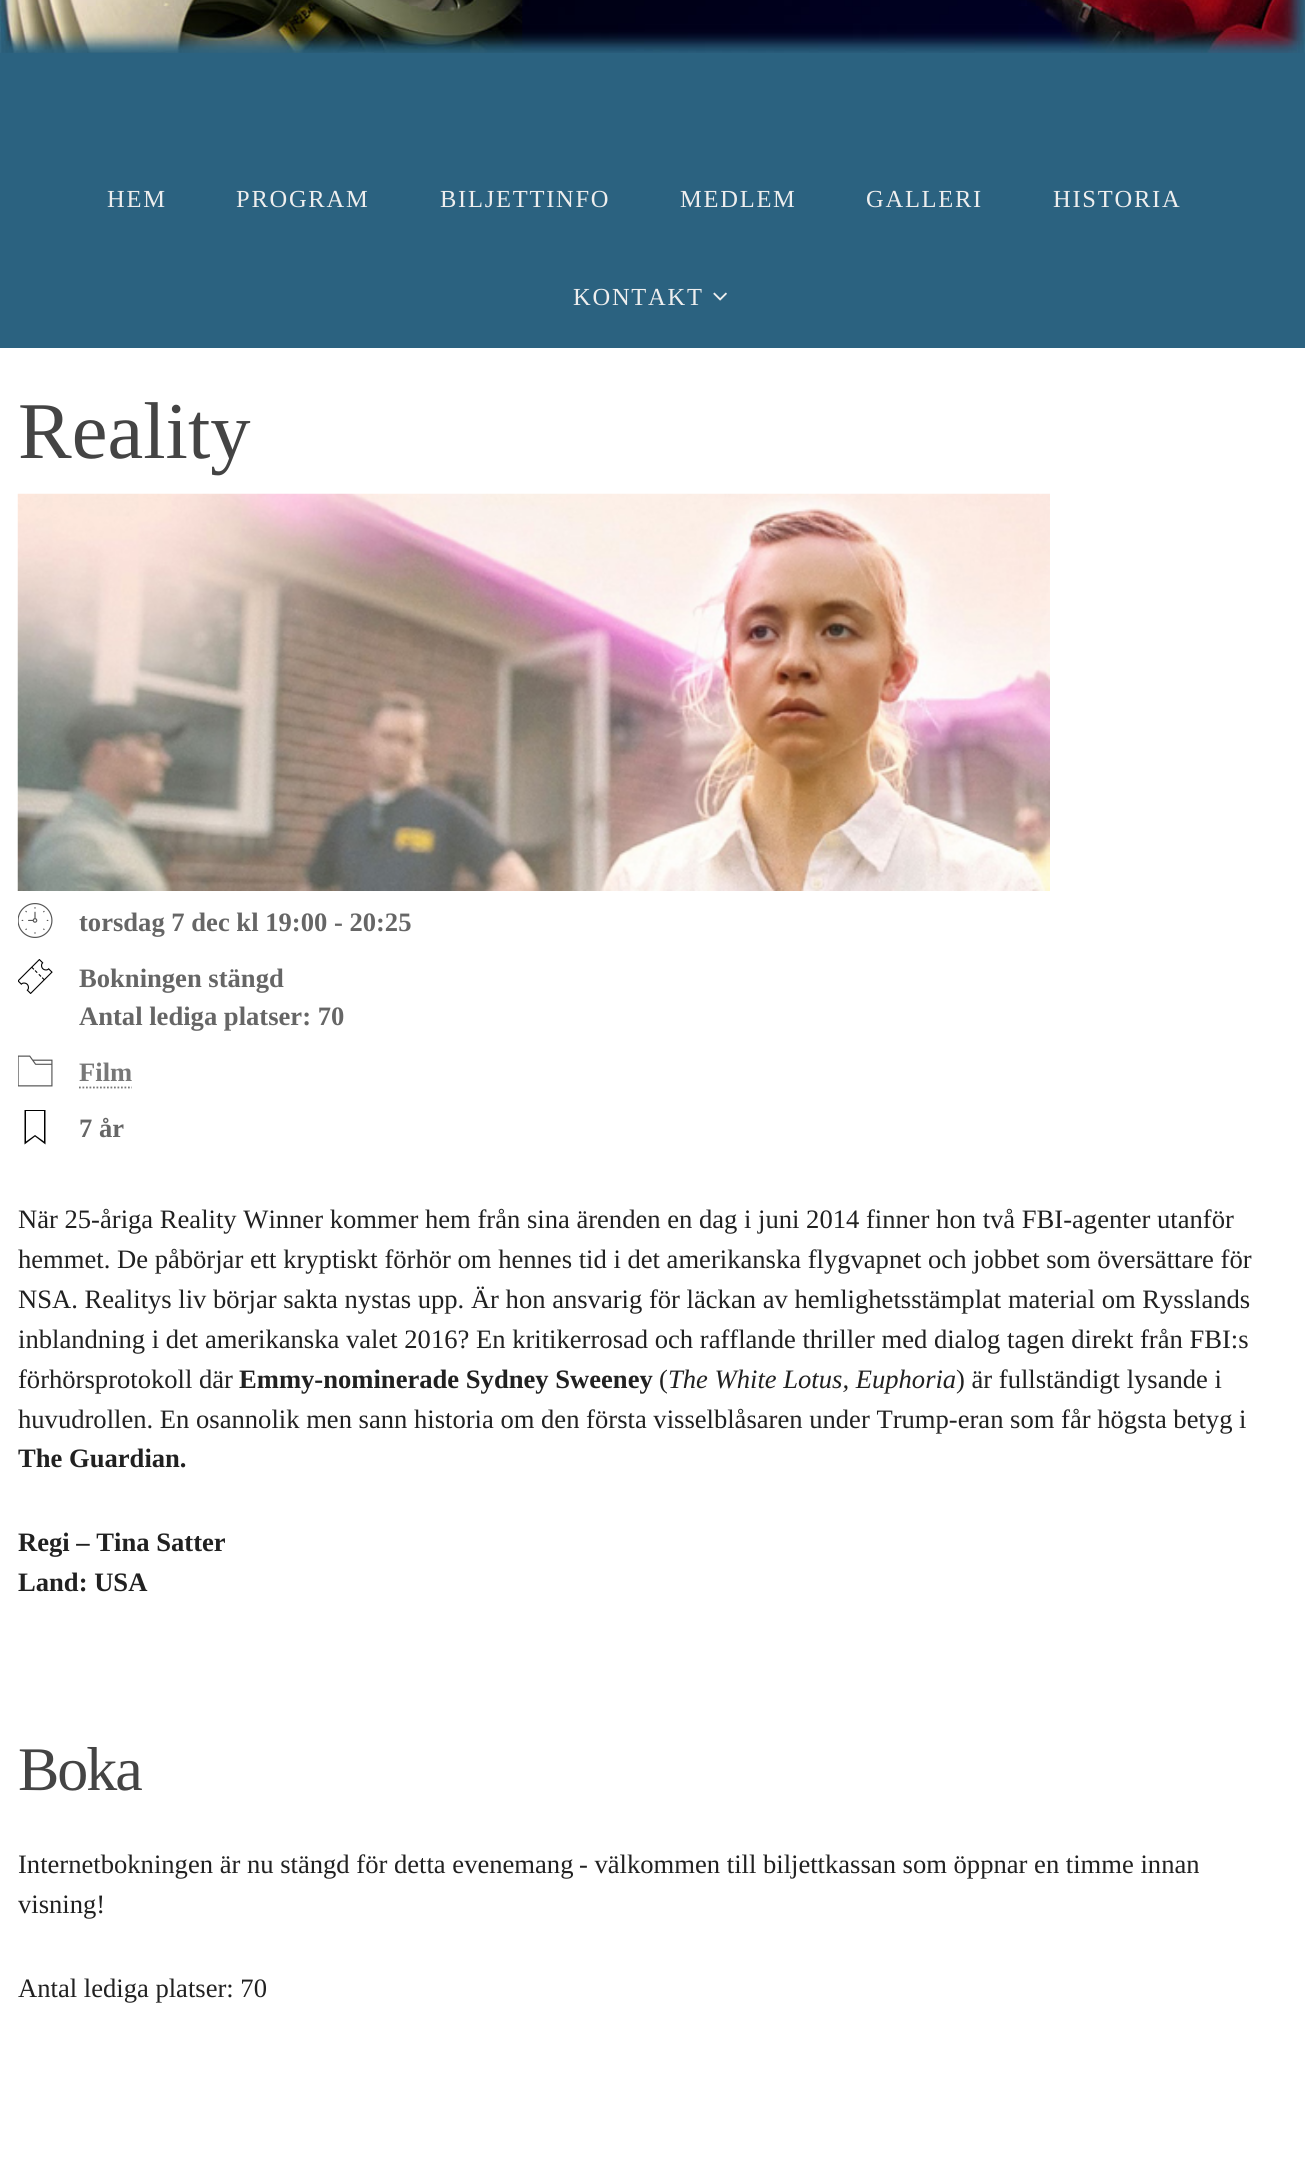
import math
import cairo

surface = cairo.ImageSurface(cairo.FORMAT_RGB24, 1305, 2162)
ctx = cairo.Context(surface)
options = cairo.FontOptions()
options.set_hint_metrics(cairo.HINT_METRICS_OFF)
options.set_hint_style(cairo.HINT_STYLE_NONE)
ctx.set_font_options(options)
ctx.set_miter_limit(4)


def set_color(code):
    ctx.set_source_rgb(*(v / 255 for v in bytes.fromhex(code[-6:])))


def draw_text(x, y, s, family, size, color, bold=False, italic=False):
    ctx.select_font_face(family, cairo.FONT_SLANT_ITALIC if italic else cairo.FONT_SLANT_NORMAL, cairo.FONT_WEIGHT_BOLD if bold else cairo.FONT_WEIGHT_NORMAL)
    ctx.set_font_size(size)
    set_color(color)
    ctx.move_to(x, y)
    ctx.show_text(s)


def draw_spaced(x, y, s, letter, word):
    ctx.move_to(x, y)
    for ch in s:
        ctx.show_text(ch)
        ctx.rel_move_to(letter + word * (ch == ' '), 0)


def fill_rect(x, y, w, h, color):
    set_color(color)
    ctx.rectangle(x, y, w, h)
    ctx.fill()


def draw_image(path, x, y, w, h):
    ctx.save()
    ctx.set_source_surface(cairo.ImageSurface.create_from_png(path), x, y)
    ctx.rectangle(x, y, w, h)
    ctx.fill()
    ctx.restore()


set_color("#ffffff")
ctx.paint()
fill_rect(0, 52, 1305, 296, "#2b6280")
draw_image("assets/img1.png", 0, 0, 1305, 53)
ctx.select_font_face("Liberation Serif")
ctx.set_font_size(24.5)
set_color("#eeeeee")
draw_spaced(107, 207, "HEM", 1.75, 0)
draw_spaced(236, 207, "PROGRAM", 1.75, 0)
draw_spaced(440, 207, "BILJETTINFO", 1.75, 0)
draw_spaced(680, 207, "MEDLEM", 1.75, 0)
draw_spaced(866, 207, "GALLERI", 1.75, 0)
draw_spaced(1053, 207, "HISTORIA", 1.75, 0)
draw_spaced(573, 305, "KONTAKT", 1.75, 0)
draw_image("assets/img2.png", 713, 292, 14, 9)
draw_text(18, 458, "Reality", "Liberation Serif", 80.5, "#444444")
draw_image("assets/img3.png", 17, 493, 1033, 398)
draw_image("assets/img4.png", 18, 903, 35, 35)
draw_text(79, 931, "torsdag 7 dec kl 19:00 - 20:25", "Liberation Serif", 26.6, "#666666", bold=True)
draw_image("assets/img5.png", 18, 959, 35, 35)
draw_text(79, 987, "Bokningen stängd", "Liberation Serif", 26.6, "#666666", bold=True)
draw_text(79, 1025, "Antal lediga platser: 70", "Liberation Serif", 26.6, "#666666", bold=True)
draw_image("assets/img6.png", 18, 1055, 35, 32)
draw_text(79, 1081, "Film", "Liberation Serif", 26.6, "#787878", bold=True)
ctx.new_path()
ctx.move_to(79, 1087.5)
ctx.line_to(132, 1087.5)
ctx.set_line_width(1.8)
ctx.set_dash([1.75, 1.75])
ctx.stroke()
ctx.save()
ctx.rectangle(18, 1110, 35, 35)
ctx.clip()
set_color("#000000")
ctx.new_path()
ctx.move_to(24.5, 1109.5)
ctx.line_to(24.5, 1144.5)
ctx.line_to(35, 1136.5)
ctx.line_to(45.5, 1144.5)
ctx.line_to(45.5, 1109.5)
ctx.close_path()
ctx.move_to(44, 1141.5)
ctx.line_to(35, 1135)
ctx.line_to(26, 1141.5)
ctx.line_to(26, 1111)
ctx.line_to(44, 1111)
ctx.close_path()
ctx.fill()
ctx.restore()
draw_text(79, 1137, "7 år", "Liberation Serif", 26.6, "#666666", bold=True)
draw_text(18, 1228, "När 25-åriga Reality Winner kommer hem från sina ärenden en dag i juni 2014 finner hon två FBI-agenter utanför", "Liberation Serif", 26.6, "#212121")
draw_text(18, 1268, "hemmet. De påbörjar ett kryptiskt förhör om hennes tid i det amerikanska flygvapnet och jobbet som översättare för", "Liberation Serif", 26.6, "#212121")
draw_text(18, 1308, "NSA. Realitys liv börjar sakta nystas upp. Är hon ansvarig för läckan av hemlighetsstämplat material om Rysslands", "Liberation Serif", 26.6, "#212121")
draw_text(18, 1348, "inblandning i det amerikanska valet 2016? En kritikerrosad och rafflande thriller med dialog tagen direkt från FBI:s", "Liberation Serif", 26.6, "#212121")
draw_text(18, 1388, "förhörsprotokoll där", "Liberation Serif", 26.6, "#212121")
draw_text(239, 1388, "Emmy-nominerade Sydney Sweeney", "Liberation Serif", 26.6, "#212121", bold=True)
draw_text(659, 1388, "(", "Liberation Serif", 26.6, "#212121")
draw_text(668, 1388, "The White Lotus, Euphoria", "Liberation Serif", 26.6, "#212121", italic=True)
draw_text(956, 1388, ") är fullständigt lysande i", "Liberation Serif", 26.6, "#212121")
draw_text(18, 1428, "huvudrollen. En osannolik men sann historia om den första visselblåsaren under Trump-eran som får högsta betyg i", "Liberation Serif", 26.6, "#212121")
ctx.save()
ctx.rectangle(18, 383, 1270, 1670)
ctx.clip()
draw_text(18, 1467, "The Guardian.", "Liberation Serif", 26.6, "#212121", bold=True)
ctx.restore()
draw_text(18, 1551, "Regi – Tina Satter", "Liberation Serif", 26.6, "#212121", bold=True)
draw_text(18, 1591, "Land: USA", "Liberation Serif", 26.6, "#212121", bold=True)
ctx.select_font_face("Liberation Serif")
ctx.set_font_size(62)
set_color("#444444")
draw_spaced(18, 1790, "Boka", -2, 0)
draw_text(18, 1873, "Internetbokningen är nu stängd för detta evenemang", "Liberation Serif", 26.6, "#212121")
draw_text(579, 1873, "- välkommen till biljettkassan som öppnar en timme innan", "Liberation Serif", 26.6, "#212121")
draw_text(18, 1913, "visning!", "Liberation Serif", 26.6, "#212121")
draw_text(18, 1997, "Antal lediga platser: 70", "Liberation Serif", 26.6, "#212121")
surface.write_to_png("output.png")
